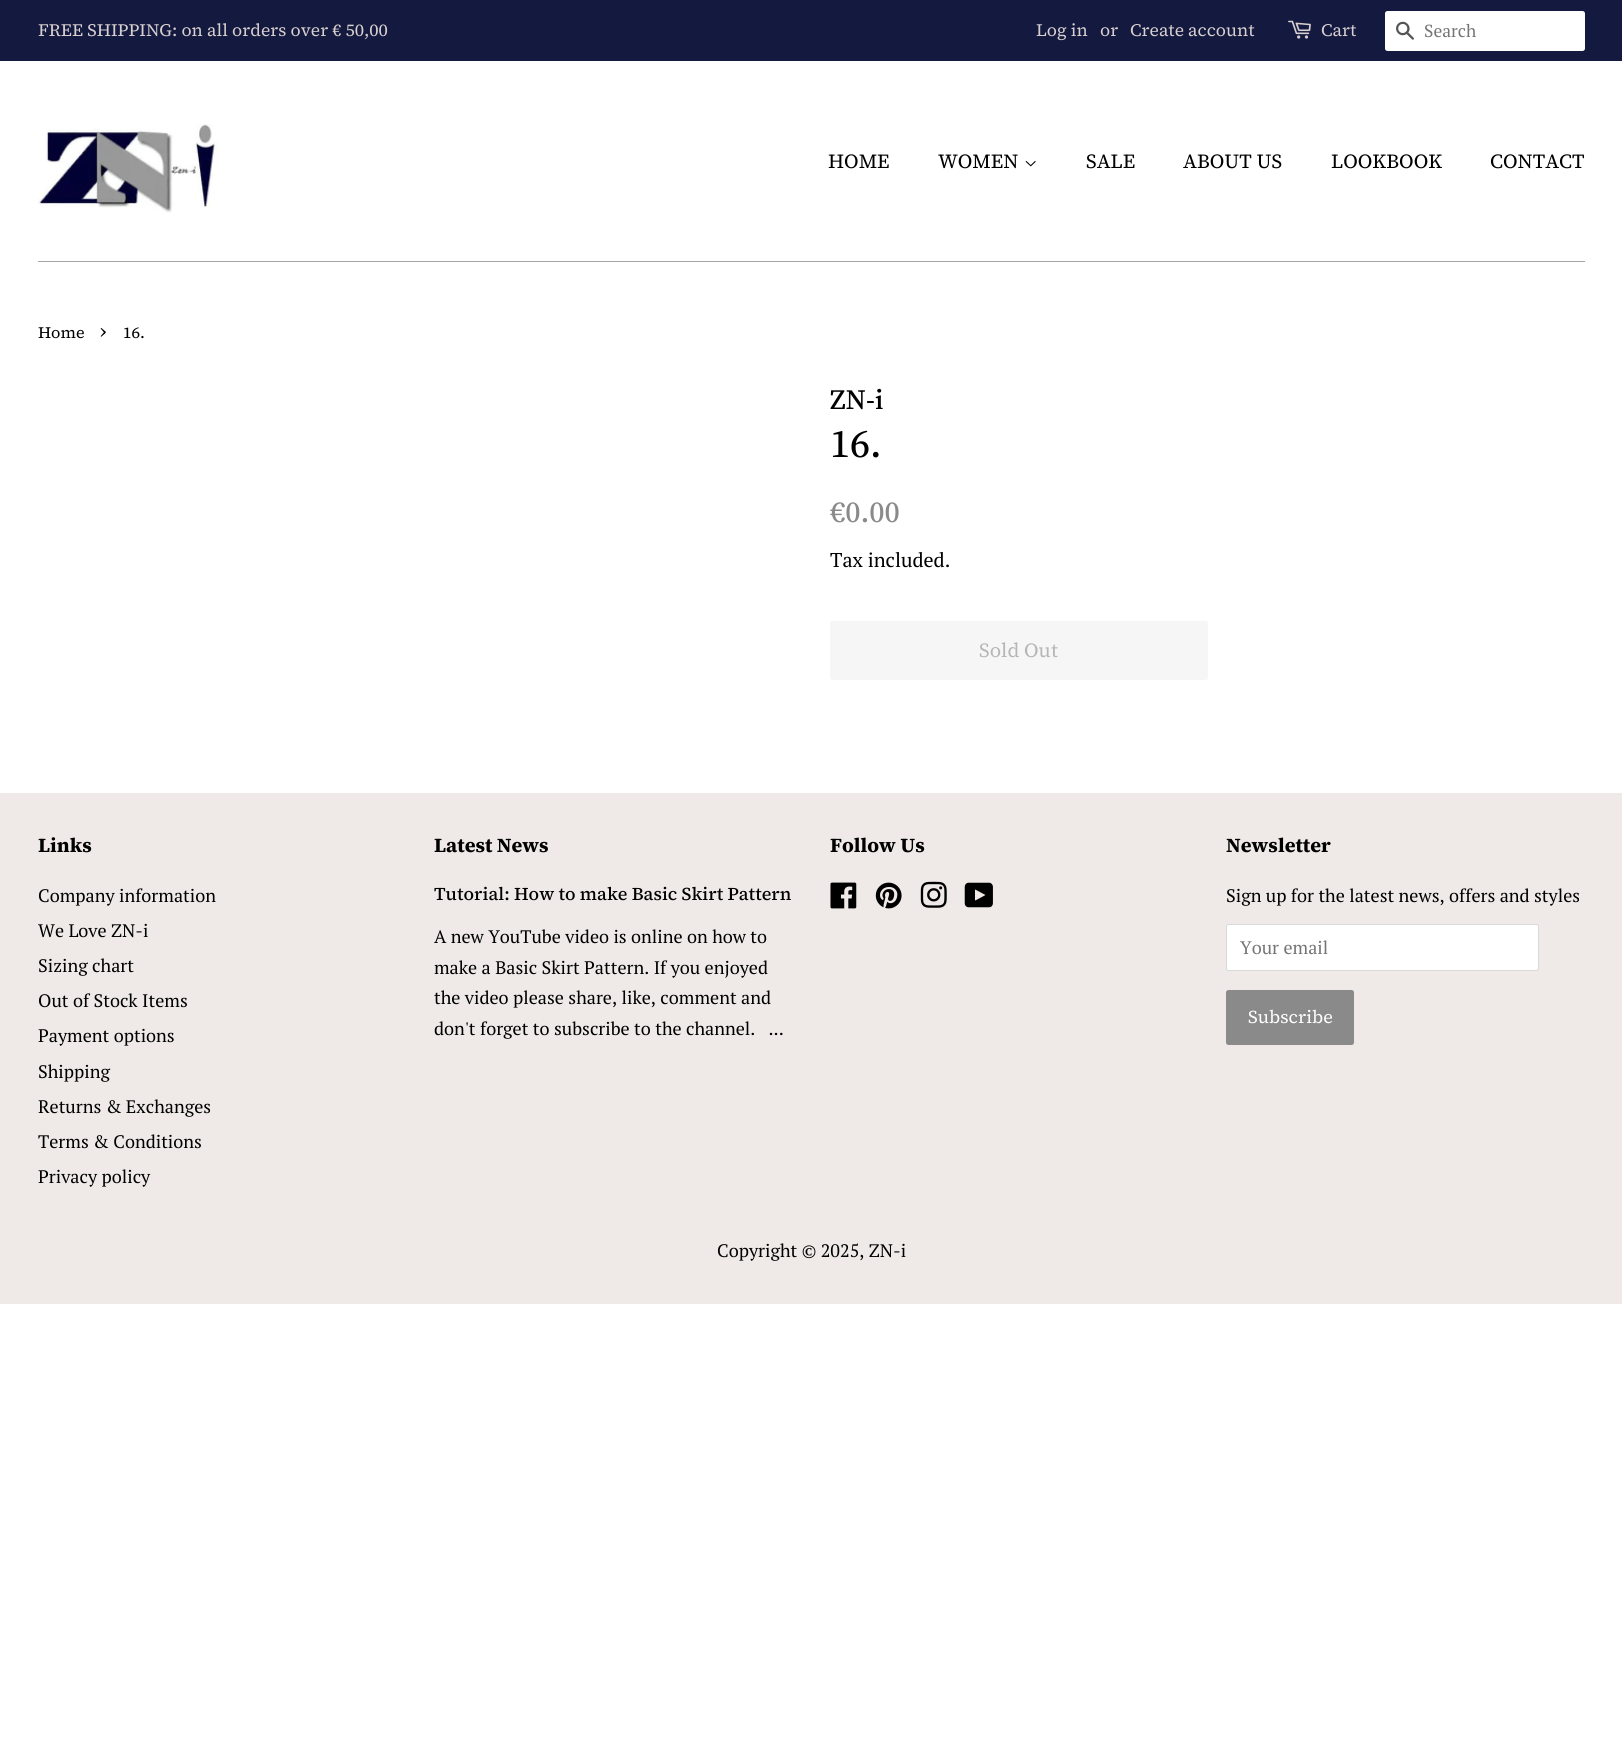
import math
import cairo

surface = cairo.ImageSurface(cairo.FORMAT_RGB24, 1622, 1752)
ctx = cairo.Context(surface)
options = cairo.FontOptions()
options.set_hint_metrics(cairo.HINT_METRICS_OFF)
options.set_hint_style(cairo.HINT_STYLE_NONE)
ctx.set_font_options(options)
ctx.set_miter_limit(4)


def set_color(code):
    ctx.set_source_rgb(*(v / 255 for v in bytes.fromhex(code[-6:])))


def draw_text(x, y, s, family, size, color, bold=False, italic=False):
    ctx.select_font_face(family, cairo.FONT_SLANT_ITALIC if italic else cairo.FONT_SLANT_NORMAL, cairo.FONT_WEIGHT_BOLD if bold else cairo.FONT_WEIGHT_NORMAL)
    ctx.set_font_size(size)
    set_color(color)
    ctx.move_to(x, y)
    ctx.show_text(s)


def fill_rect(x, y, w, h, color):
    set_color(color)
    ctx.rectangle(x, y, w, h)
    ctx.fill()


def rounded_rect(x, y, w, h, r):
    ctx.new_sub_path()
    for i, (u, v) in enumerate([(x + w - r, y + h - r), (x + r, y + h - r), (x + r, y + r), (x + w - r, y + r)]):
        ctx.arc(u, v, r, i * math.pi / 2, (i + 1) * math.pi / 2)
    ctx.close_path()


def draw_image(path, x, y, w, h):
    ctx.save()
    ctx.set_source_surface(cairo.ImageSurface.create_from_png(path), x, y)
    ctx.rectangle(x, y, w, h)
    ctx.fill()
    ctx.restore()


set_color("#ffffff")
ctx.paint()
fill_rect(0, 0, 1622, 61, "#13193f")
draw_text(38, 36, "FREE SHIPPING: on all orders over € 50,00", "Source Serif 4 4", 17.5, "#d8cfcf")
draw_text(1036, 36, "Log in", "Source Serif 4 4", 17.5, "#d8cfcf")
draw_text(1100, 36, "or", "Source Serif 4 4", 17.5, "#d8cfcf")
draw_text(1130, 36, "Create account", "Source Serif 4 4", 17.5, "#d8cfcf")
draw_image("assets/img1.png", 1288, 20, 23, 19)
draw_text(1321, 36, "Cart", "Source Serif 4 4", 17.5, "#d8cfcf")
set_color("#ffffff")
rounded_rect(1385, 11, 200, 40, 2.5)
ctx.fill()
draw_image("assets/img2.png", 1396, 21, 18, 19)
draw_text(1424, 37, "Search", "PT Serif", 17.5, "#757575")
fill_rect(38, 261, 1547, 1, "#a5a5a5")
draw_image("assets/img3.png", 37, 124, 182, 89)
draw_text(828, 168, "HOME", "Source Serif 4", 20, "#000000")
draw_text(938, 168, "WOMEN", "Source Serif 4", 20, "#000000")
draw_image("assets/img4.png", 1025, 160, 11, 7)
draw_text(1086, 168, "SALE", "Source Serif 4", 20, "#000000")
draw_text(1183, 168, "ABOUT US", "Source Serif 4", 20, "#000000")
draw_text(1331, 168, "LOOKBOOK", "Source Serif 4", 20, "#000000")
draw_text(1490, 168, "CONTACT", "Source Serif 4", 20, "#000000")
draw_text(38, 338, "Home", "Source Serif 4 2", 16, "#000000")
draw_text(100, 338, "›", "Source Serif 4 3", 22, "#000000")
draw_text(123, 338, "16.", "Source Serif 4 2", 16, "#000000")
draw_text(830, 409, "ZN-i", "Source Serif 4 Medium", 28, "#000000")
draw_text(830, 457, "16.", "Source Serif 4 2 Medium", 40, "#000000")
draw_text(830, 522, "€0.00", "Source Serif 4 3 Medium", 30, "#8a8a8a")
draw_text(830, 567, "Tax included.", "PT Serif", 20, "#000000")
set_color("#f6f6f6")
rounded_rect(830, 621, 378, 59, 2.5)
ctx.fill()
draw_text(979, 657, "Sold Out", "Source Serif 4", 20, "#b6b6b6")
fill_rect(0, 793, 1622, 511, "#efeae7")
draw_text(38, 852, "Links", "Source Serif 4", 20, "#000000", bold=True)
draw_text(38, 902, "Company information", "PT Serif", 18.1, "#000000")
draw_text(38, 937, "We Love ZN-i", "PT Serif", 18.1, "#000000")
draw_text(38, 972, "Sizing chart", "PT Serif", 18.1, "#000000")
draw_text(38, 1007, "Out of Stock Items", "PT Serif", 18.1, "#000000")
draw_text(38, 1042, "Payment options", "PT Serif", 18.1, "#000000")
draw_text(38, 1078, "Shipping", "PT Serif", 18.1, "#000000")
draw_text(38, 1113, "Returns & Exchanges", "PT Serif", 18.1, "#000000")
draw_text(38, 1148, "Terms & Conditions", "PT Serif", 18.1, "#000000")
draw_text(38, 1183, "Privacy policy", "PT Serif", 18.1, "#000000")
draw_text(434, 852, "Latest News", "Source Serif 4", 20, "#000000", bold=True)
draw_text(434, 900, "Tutorial: How to make Basic Skirt Pattern", "Source Serif 4 4 Medium", 18.1, "#000000")
draw_text(434, 943, "A new YouTube video is online on how to", "PT Serif", 18.1, "#000000")
draw_text(434, 974, "make a Basic Skirt Pattern. If you enjoyed", "PT Serif", 18.1, "#000000")
draw_text(434, 1004, "the video please share, like, comment and", "PT Serif", 18.1, "#000000")
draw_text(434, 1035, "don't forget to subscribe to the channel.   ...", "PT Serif", 18.1, "#000000")
draw_text(830, 852, "Follow Us", "Source Serif 4", 20, "#000000", bold=True)
draw_image("assets/img5.png", 830, 882, 27, 27)
draw_image("assets/img6.png", 875, 882, 27, 27)
draw_image("assets/img7.png", 920, 881, 27, 27)
draw_image("assets/img8.png", 964, 882, 29, 26)
draw_text(1226, 852, "Newsletter", "Source Serif 4", 20, "#000000", bold=True)
draw_text(1226, 902, "Sign up for the latest news, offers and styles", "PT Serif", 18.1, "#000000")
set_color("#ffffff")
rounded_rect(1226, 924, 313, 47, 2.5)
ctx.fill()
rounded_rect(1226.5, 924.5, 312, 46, 2)
ctx.set_source_rgba(0, 0, 0, 0.15)
ctx.set_line_width(1)
ctx.stroke()
draw_text(1240, 954, "Your email", "PT Serif", 18.1, "#757575")
set_color("#8a8a8a")
rounded_rect(1226, 990, 128, 55, 2.5)
ctx.fill()
draw_text(1248, 1023, "Subscribe", "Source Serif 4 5", 18.1, "#ffffff")
draw_text(717, 1257, "Copyright © 2025, ZN-i", "PT Serif", 18.1, "#000000")
surface.write_to_png("output.png")
